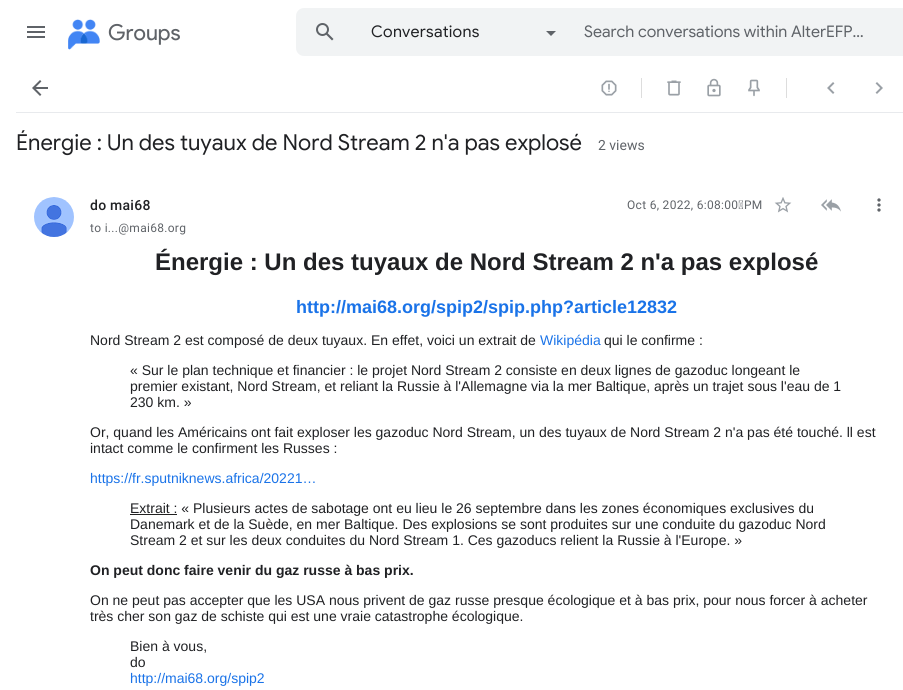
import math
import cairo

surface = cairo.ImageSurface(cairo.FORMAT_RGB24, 903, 690)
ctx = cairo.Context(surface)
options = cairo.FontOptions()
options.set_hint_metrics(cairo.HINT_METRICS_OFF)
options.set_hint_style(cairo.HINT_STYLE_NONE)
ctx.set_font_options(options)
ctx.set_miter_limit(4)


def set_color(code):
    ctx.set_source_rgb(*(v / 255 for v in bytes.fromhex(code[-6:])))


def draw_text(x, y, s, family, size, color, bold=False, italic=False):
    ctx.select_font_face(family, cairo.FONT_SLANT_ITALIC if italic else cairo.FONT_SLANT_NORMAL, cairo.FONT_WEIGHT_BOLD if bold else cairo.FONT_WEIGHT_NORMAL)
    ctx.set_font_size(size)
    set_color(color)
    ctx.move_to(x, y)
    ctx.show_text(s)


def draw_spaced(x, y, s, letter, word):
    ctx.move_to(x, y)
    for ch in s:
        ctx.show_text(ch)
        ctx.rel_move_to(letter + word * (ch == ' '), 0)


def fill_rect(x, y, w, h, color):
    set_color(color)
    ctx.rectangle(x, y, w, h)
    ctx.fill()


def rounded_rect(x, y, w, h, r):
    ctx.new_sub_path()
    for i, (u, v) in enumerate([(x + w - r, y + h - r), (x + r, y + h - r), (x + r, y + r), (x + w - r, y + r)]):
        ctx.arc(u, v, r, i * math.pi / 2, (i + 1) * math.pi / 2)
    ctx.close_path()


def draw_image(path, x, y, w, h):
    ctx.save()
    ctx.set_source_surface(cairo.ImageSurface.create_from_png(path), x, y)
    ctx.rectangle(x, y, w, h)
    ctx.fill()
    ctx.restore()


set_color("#ffffff")
ctx.paint()
draw_image("assets/img1.png", 27, 26, 18, 12)
draw_image("assets/img2.png", 68, 19, 32, 31)
draw_text(108, 40, "Groups", "Product Sans", 22, "#5f6368")
set_color("#f1f3f4")
rounded_rect(296, 8, 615, 48, 8)
ctx.fill()
draw_image("assets/img3.png", 316, 23, 18, 18)
ctx.select_font_face("Google Sans")
ctx.set_font_size(16)
set_color("#202124")
draw_spaced(371, 37, "Conversations", 0.25, 0)
set_color("#5f6368")
ctx.new_path()
ctx.move_to(546, 31)
ctx.line_to(556, 31)
ctx.line_to(551, 36)
ctx.close_path()
ctx.fill()
draw_text(584, 37, "Search conversations within AlterEFP…", "Google Sans", 16, "#5f6368")
fill_rect(16, 112, 887, 1, "#e8eaed")
draw_image("assets/img4.png", 32, 80, 16, 16)
draw_image("assets/img5.png", 601, 80, 16, 16)
fill_rect(641, 78, 1, 20, "#dddddd")
draw_image("assets/img6.png", 667, 80, 14, 16)
draw_image("assets/img7.png", 707, 78, 14, 19)
draw_image("assets/img8.png", 748, 79, 12, 18)
fill_rect(786, 78, 1, 20, "#dddddd")
draw_image("assets/img9.png", 827, 82, 8, 12)
draw_image("assets/img10.png", 875, 82, 8, 12)
draw_text(16, 150, "Énergie : Un des tuyaux de Nord Stream 2 n'a pas explosé", "Google Sans", 22, "#202124")
draw_text(598, 150, "2 views", "Roboto", 14, "#5f6368")
draw_image("assets/img11.png", 34, 197, 40, 40)
ctx.select_font_face("Roboto Medium")
set_color("#202124")
draw_spaced(90, 210, "do mai68", 0.25, 0)
ctx.select_font_face("Roboto")
ctx.set_font_size(12)
set_color("#5f6368")
draw_spaced(627, 209, "Oct 6, 2022, 6:08:00 PM", 0.3, 0)
draw_image("assets/img12.png", 774, 197, 18, 16)
draw_image("assets/img13.png", 821, 199, 20, 13)
draw_image("assets/img14.png", 877, 198, 4, 14)
draw_spaced(90, 232, "to i...@mai68.org", 0.3, 0)
draw_text(155, 270, "Énergie : Un des tuyaux de Nord Stream 2 n'a pas explosé", "Liberation Sans", 24, "#202124", bold=True)
draw_text(296, 313, "http://mai68.org/spip2/spip.php?article12832", "Liberation Sans", 18, "#1a73e8", bold=True)
draw_text(90, 345, "Nord Stream 2 est composé de deux tuyaux. En effet, voici un extrait de", "Liberation Sans", 14, "#202124")
draw_text(540, 345, "Wikipédia", "Liberation Sans", 14, "#1a73e8")
draw_text(604, 345, "qui le confirme :", "Liberation Sans", 14, "#202124")
draw_text(130, 375, "« Sur le plan technique et financier : le projet Nord Stream 2 consiste en deux lignes de gazoduc longeant le", "Liberation Sans", 14, "#202124")
draw_text(130, 391, "premier existant, Nord Stream, et reliant la Russie à l'Allemagne via la mer Baltique, après un trajet sous l'eau de 1", "Liberation Sans", 14, "#202124")
draw_text(130, 407, "230 km. »", "Liberation Sans", 14, "#202124")
draw_text(90, 437, "Or, quand les Américains ont fait exploser les gazoduc Nord Stream, un des tuyaux de Nord Stream 2 n'a pas été touché. ll est", "Liberation Sans", 14, "#202124")
draw_text(90, 453, "intact comme le confirment les Russes :", "Liberation Sans", 14, "#202124")
draw_text(90, 483, "https://fr.sputniknews.africa/20221…", "Liberation Sans", 14, "#1a73e8")
fill_rect(130, 514, 47, 1, "#212121")
draw_text(130, 513, "Extrait : « Plusieurs actes de sabotage ont eu lieu le 26 septembre dans les zones économiques exclusives du", "Liberation Sans", 14, "#202124")
draw_text(130, 529, "Danemark et de la Suède, en mer Baltique. Des explosions se sont produites sur une conduite du gazoduc Nord", "Liberation Sans", 14, "#202124")
draw_text(130, 545, "Stream 2 et sur les deux conduites du Nord Stream 1. Ces gazoducs relient la Russie à l'Europe. »", "Liberation Sans", 14, "#202124")
draw_text(90, 575, "On peut donc faire venir du gaz russe à bas prix.", "Liberation Sans", 14, "#202124", bold=True)
draw_text(90, 605, "On ne peut pas accepter que les USA nous privent de gaz russe presque écologique et à bas prix, pour nous forcer à acheter", "Liberation Sans", 14, "#202124")
draw_text(90, 621, "très cher son gaz de schiste qui est une vraie catastrophe écologique.", "Liberation Sans", 14, "#202124")
draw_text(130, 651, "Bien à vous,", "Liberation Sans", 14, "#202124")
draw_text(130, 667, "do", "Liberation Sans", 14, "#202124")
draw_text(130, 683, "http://mai68.org/spip2", "Liberation Sans", 14, "#1a73e8")
surface.write_to_png("output.png")
